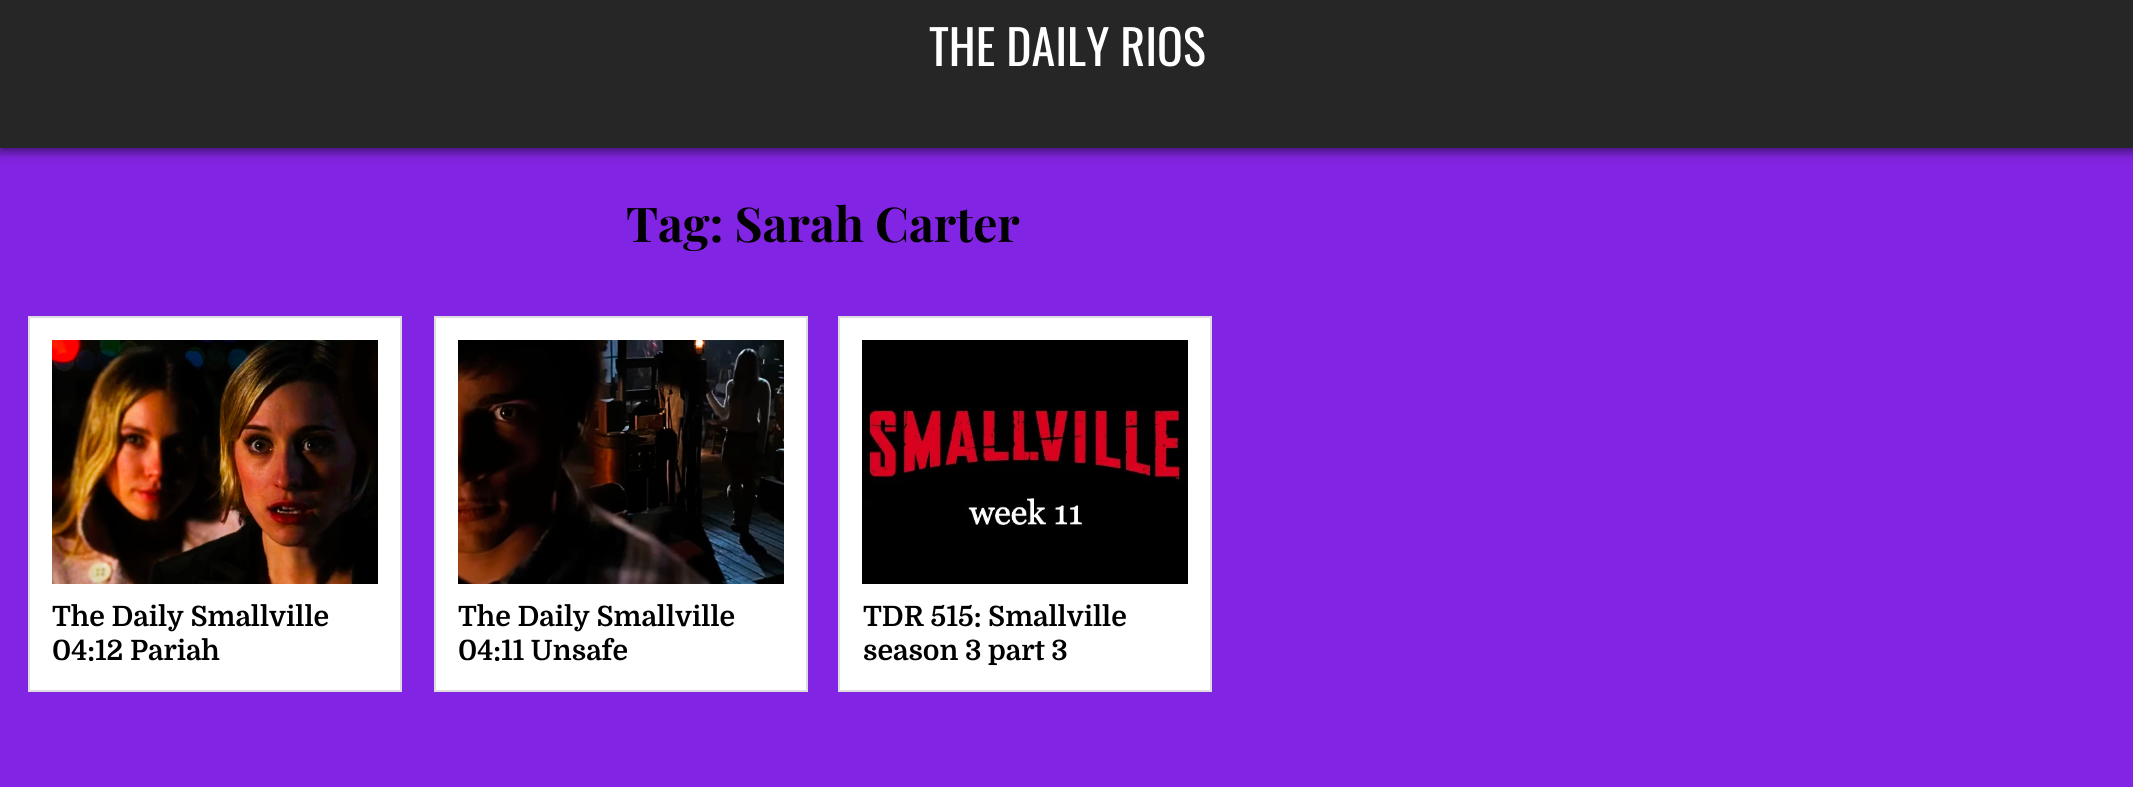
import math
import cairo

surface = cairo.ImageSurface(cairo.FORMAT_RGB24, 2133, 787)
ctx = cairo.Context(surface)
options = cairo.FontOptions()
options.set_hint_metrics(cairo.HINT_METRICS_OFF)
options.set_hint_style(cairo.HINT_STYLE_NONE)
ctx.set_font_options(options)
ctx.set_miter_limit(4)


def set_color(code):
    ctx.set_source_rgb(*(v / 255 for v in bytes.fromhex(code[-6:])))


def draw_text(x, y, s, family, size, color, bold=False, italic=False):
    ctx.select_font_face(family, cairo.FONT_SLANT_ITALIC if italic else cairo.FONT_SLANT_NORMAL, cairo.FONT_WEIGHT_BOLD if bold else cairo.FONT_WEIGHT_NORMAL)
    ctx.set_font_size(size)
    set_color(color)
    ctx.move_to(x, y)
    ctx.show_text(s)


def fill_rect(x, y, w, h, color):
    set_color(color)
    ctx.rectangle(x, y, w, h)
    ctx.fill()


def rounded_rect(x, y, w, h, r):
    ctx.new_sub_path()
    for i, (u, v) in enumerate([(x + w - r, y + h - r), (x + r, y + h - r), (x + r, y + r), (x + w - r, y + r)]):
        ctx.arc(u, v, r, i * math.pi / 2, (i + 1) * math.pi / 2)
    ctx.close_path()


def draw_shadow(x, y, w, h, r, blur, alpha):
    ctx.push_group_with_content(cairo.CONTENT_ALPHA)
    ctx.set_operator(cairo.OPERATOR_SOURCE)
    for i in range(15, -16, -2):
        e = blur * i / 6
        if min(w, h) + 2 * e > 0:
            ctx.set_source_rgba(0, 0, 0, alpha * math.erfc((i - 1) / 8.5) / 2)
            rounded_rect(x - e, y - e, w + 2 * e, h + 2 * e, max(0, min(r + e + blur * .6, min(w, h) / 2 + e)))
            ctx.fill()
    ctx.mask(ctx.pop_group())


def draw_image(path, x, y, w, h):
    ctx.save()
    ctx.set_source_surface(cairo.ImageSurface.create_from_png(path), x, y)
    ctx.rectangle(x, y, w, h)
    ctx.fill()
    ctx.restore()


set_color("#8224e3")
ctx.paint()
set_color("#000000")
draw_shadow(0, 4, 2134, 148, 0, 5, 0.5)
fill_rect(0, 0, 2133, 148, "#262626")
draw_text(929, 66, "THE DAILY RIOS", "Oswald", 48, "#ffffff")
draw_text(626, 242, "Tag: Sarah Carter", "Playfair Display", 48, "#000000", bold=True)
set_color("#ffffff")
ctx.rectangle(29, 317, 372, 374)
ctx.fill_preserve()
set_color("#dddddd")
ctx.stroke()
draw_image("assets/img1.png", 52, 340, 326, 244)
draw_text(52, 626, "The Daily Smallville", "Domine", 28, "#000000", bold=True)
draw_text(52, 660, "04:12 Pariah", "Domine", 28, "#000000", bold=True)
set_color("#ffffff")
ctx.rectangle(435, 317, 372, 374)
ctx.fill_preserve()
set_color("#dddddd")
ctx.stroke()
draw_image("assets/img2.png", 458, 340, 326, 244)
draw_text(458, 626, "The Daily Smallville", "Domine", 28, "#000000", bold=True)
draw_text(458, 660, "04:11 Unsafe", "Domine", 28, "#000000", bold=True)
set_color("#ffffff")
ctx.rectangle(839, 317, 372, 374)
ctx.fill_preserve()
set_color("#dddddd")
ctx.stroke()
draw_image("assets/img3.png", 862, 340, 326, 244)
draw_text(863, 626, "TDR 515: Smallville", "Domine", 28, "#000000", bold=True)
draw_text(863, 660, "season 3 part 3", "Domine", 28, "#000000", bold=True)
surface.write_to_png("output.png")
